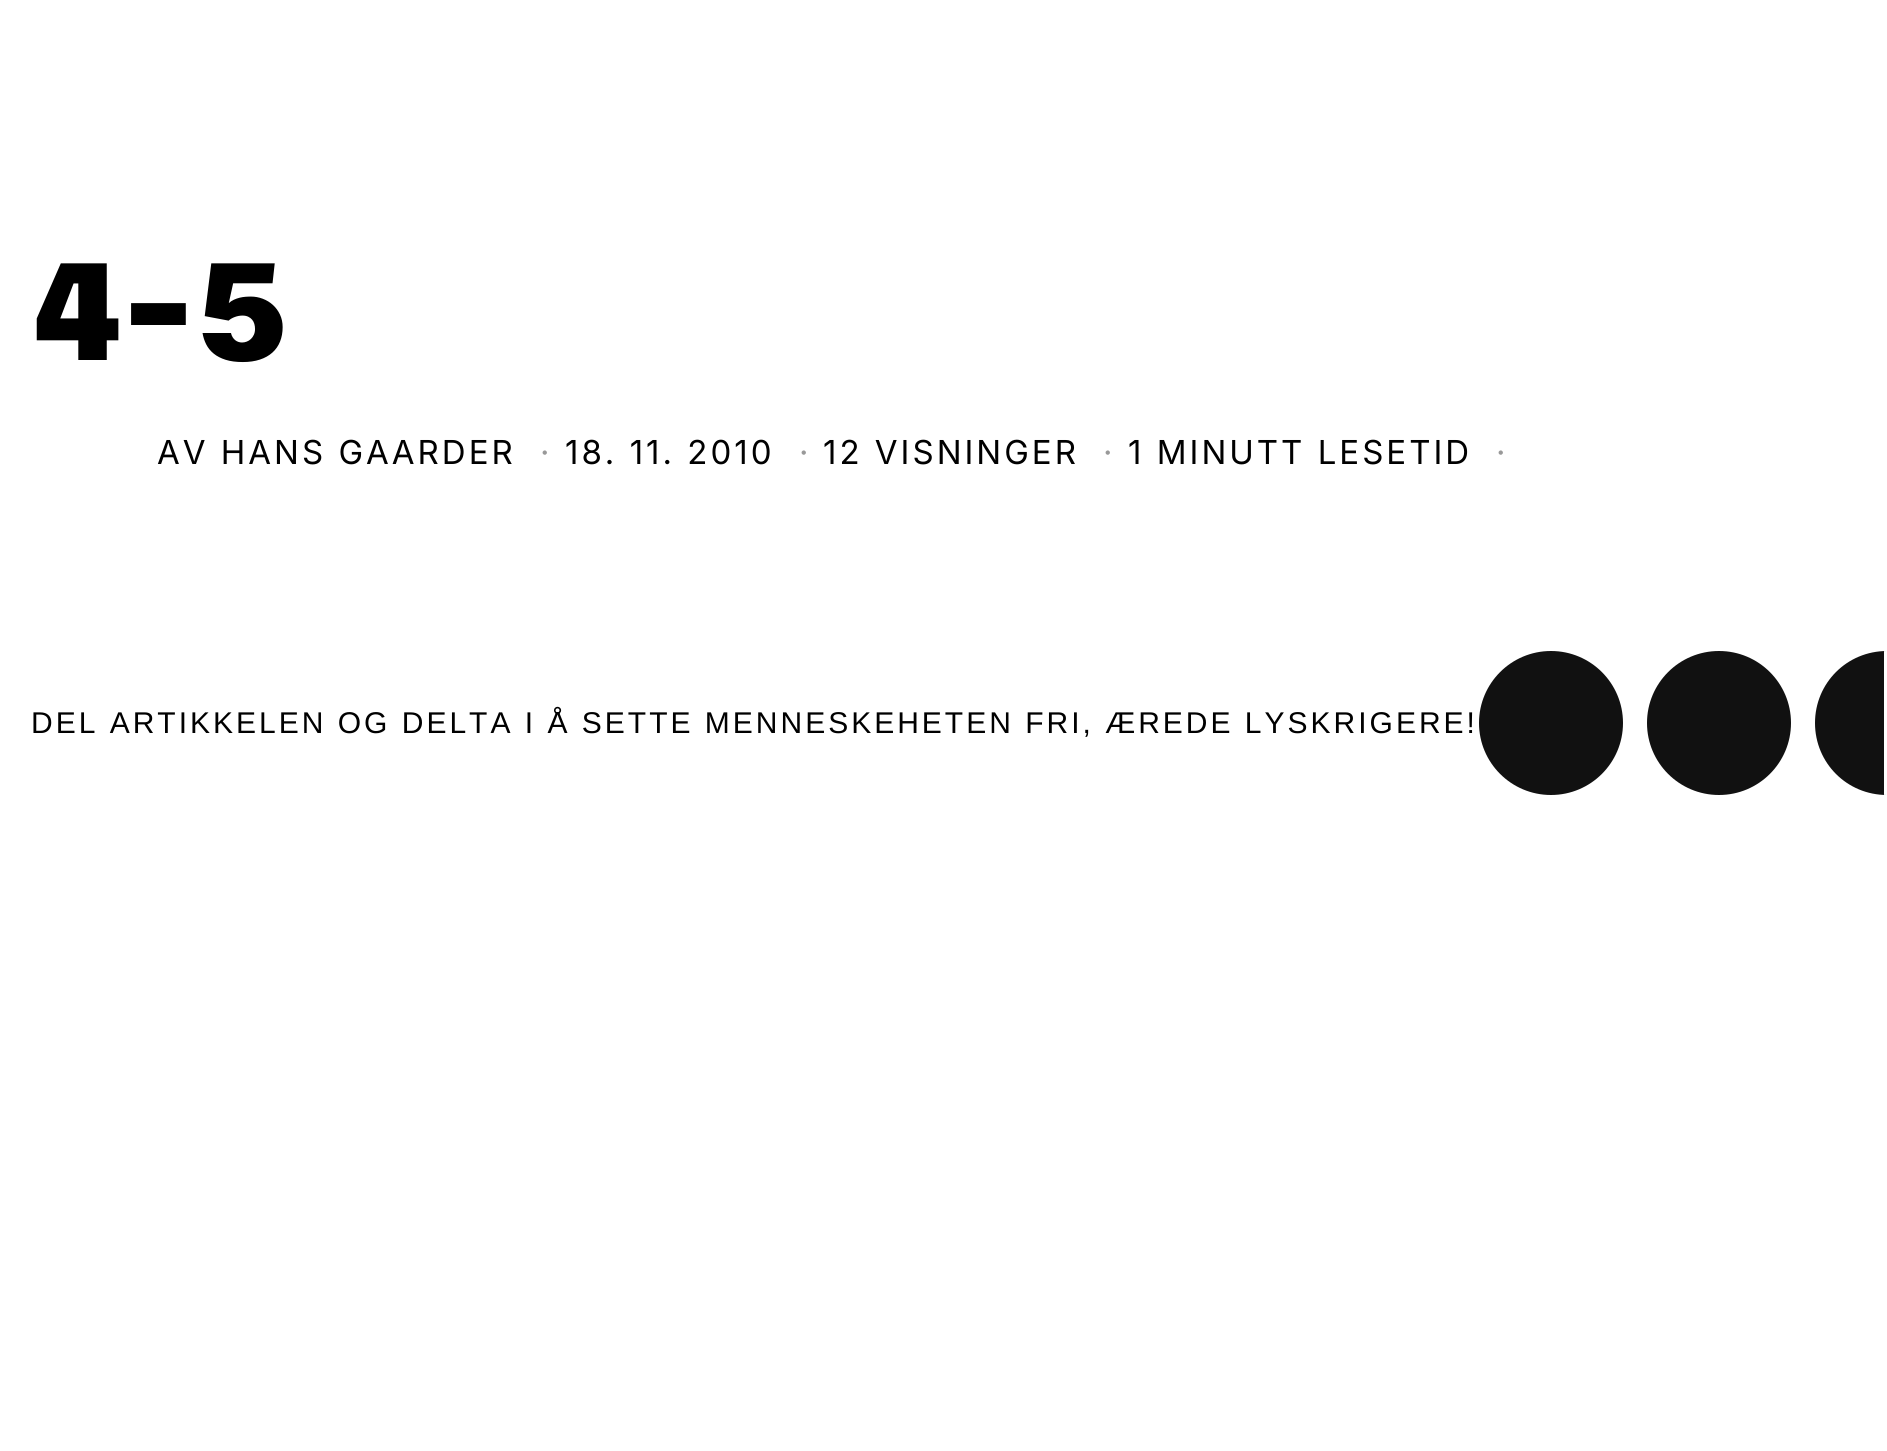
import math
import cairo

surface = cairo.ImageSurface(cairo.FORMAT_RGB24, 1887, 1451)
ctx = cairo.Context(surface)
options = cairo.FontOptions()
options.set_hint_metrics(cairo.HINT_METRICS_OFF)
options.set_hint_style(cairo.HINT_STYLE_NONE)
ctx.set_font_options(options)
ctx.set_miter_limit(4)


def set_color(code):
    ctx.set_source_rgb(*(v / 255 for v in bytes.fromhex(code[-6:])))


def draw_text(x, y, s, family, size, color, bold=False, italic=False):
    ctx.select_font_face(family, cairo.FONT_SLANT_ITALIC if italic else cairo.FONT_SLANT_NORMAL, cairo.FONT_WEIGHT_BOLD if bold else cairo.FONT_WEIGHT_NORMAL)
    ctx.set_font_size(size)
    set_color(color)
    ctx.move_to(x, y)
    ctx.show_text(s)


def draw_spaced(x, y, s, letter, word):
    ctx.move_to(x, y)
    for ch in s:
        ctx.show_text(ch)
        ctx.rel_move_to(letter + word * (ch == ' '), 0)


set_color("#ffffff")
ctx.paint()
draw_text(31, 360, "4-5", "Candal", 140, "#000000")
ctx.select_font_face("Inter")
ctx.set_font_size(33)
draw_spaced(157, 464, "AV HANS GAARDER", 3, 0)
set_color("#999999")
draw_spaced(540, 464, "·", 3, 0)
set_color("#000000")
draw_spaced(565, 464, "18. 11. 2010", 3, 0)
set_color("#999999")
draw_spaced(799, 464, "·", 3, 0)
set_color("#000000")
draw_spaced(823, 464, "12 VISNINGER", 3, 0)
set_color("#999999")
draw_spaced(1103, 464, "·", 3, 0)
set_color("#000000")
draw_spaced(1128, 464, "1 MINUTT LESETID", 3, 0)
set_color("#999999")
draw_spaced(1496, 464, "·", 3, 0)
ctx.select_font_face("Liberation Sans")
ctx.set_font_size(30)
set_color("#000000")
draw_spaced(31, 733, "DEL ARTIKKELEN OG DELTA I Å SETTE MENNESKEHETEN FRI, ÆREDE LYSKRIGERE!", 3, 0)
set_color("#111111")
ctx.new_path()
ctx.arc(1551, 723, 72, 0, 2 * math.pi)
ctx.fill()
ctx.arc(1719, 723, 72, 0, 2 * math.pi)
ctx.fill()
ctx.new_path()
ctx.move_to(1887, 651)
ctx.line_to(1884, 651)
ctx.line_to(1884, 795)
ctx.line_to(1887, 795)
ctx.curve_to(1847, 795, 1815, 763, 1815, 723)
ctx.curve_to(1815, 683, 1847, 651, 1887, 651)
ctx.close_path()
ctx.fill()
surface.write_to_png("output.png")
